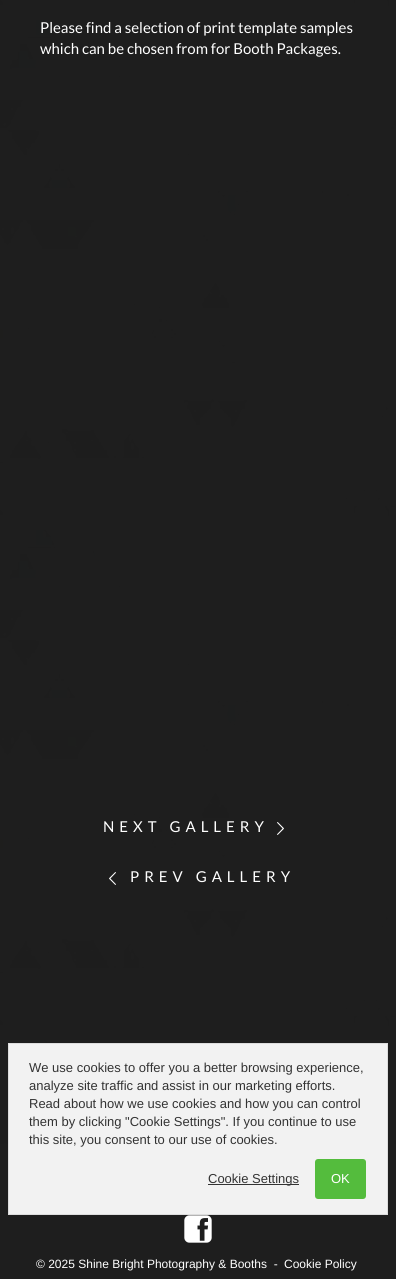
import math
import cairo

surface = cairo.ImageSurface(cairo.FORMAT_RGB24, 396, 1279)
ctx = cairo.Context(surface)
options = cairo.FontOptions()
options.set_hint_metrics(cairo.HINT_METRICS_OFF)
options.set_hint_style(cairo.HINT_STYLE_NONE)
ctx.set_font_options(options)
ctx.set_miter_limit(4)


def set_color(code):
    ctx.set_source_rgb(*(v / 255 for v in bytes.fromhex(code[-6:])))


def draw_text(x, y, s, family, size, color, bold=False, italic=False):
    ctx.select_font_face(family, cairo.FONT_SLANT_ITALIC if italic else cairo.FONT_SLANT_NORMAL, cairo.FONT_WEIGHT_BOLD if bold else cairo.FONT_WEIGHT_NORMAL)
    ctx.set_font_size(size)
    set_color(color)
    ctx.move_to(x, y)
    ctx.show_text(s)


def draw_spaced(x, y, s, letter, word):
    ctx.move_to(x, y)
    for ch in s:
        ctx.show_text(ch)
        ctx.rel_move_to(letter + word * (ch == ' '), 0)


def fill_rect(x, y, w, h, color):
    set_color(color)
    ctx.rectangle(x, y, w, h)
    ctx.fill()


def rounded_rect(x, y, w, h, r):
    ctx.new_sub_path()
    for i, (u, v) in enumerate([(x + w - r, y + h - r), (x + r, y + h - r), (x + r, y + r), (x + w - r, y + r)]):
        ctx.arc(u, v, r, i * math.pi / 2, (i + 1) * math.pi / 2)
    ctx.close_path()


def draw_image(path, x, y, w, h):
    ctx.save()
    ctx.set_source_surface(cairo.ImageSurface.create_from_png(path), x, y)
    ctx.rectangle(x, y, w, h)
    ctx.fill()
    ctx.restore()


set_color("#ffffff")
ctx.paint()
draw_image("assets/img1.png", 0, 0, 396, 1144)
ctx.set_source_rgba(0.118, 0.118, 0.118, 0.9)
ctx.rectangle(0, 0, 396, 1144)
ctx.fill()
draw_text(40, 33, "Please find a selection of print template samples", "Lato", 15, "#ffffff")
draw_text(40, 54, "which can be chosen from for Booth Packages.", "Lato", 15, "#ffffff")
draw_spaced(103, 832, "NEXT GALLERY", 5, 0)
draw_image("assets/img2.png", 277, 822, 7, 13)
draw_image("assets/img3.png", 109, 872, 7, 13)
draw_spaced(130, 882, "PREV GALLERY", 5, 0)
fill_rect(0, 1144, 396, 135, "#1e1e1e")
draw_image("assets/img4.png", 184, 1215, 28, 28)
draw_text(36, 1268, "© 2025 Shine Bright Photography & Booths  -", "Liberation Sans", 12, "#ffffff")
draw_text(284, 1268, "Cookie Policy", "Liberation Sans", 12, "#ffffff")
set_color("#f2f2f2")
ctx.rectangle(8.5, 1043.5, 379, 171)
ctx.fill_preserve()
set_color("#dddddd")
ctx.set_line_width(1)
ctx.stroke()
draw_text(29, 1072, "We use cookies to offer you a better browsing experience,", "Liberation Sans", 13, "#333333")
draw_text(29, 1090, "analyze site traffic and assist in our marketing efforts.", "Liberation Sans", 13, "#333333")
draw_text(29, 1108, "Read about how we use cookies and how you can control", "Liberation Sans", 13, "#333333")
draw_text(29, 1126, "them by clicking \"Cookie Settings\". If you continue to use", "Liberation Sans", 13, "#333333")
draw_text(29, 1144, "this site, you consent to our use of cookies.", "Liberation Sans", 13, "#333333")
fill_rect(208, 1184, 91, 1, "#333333")
draw_text(208, 1183, "Cookie Settings", "Liberation Sans", 13, "#333333")
set_color("#54bc3d")
rounded_rect(315, 1159, 51, 40, 3)
ctx.fill()
draw_text(331, 1183, "OK", "Liberation Sans", 13, "#ffffff")
surface.write_to_png("output.png")
